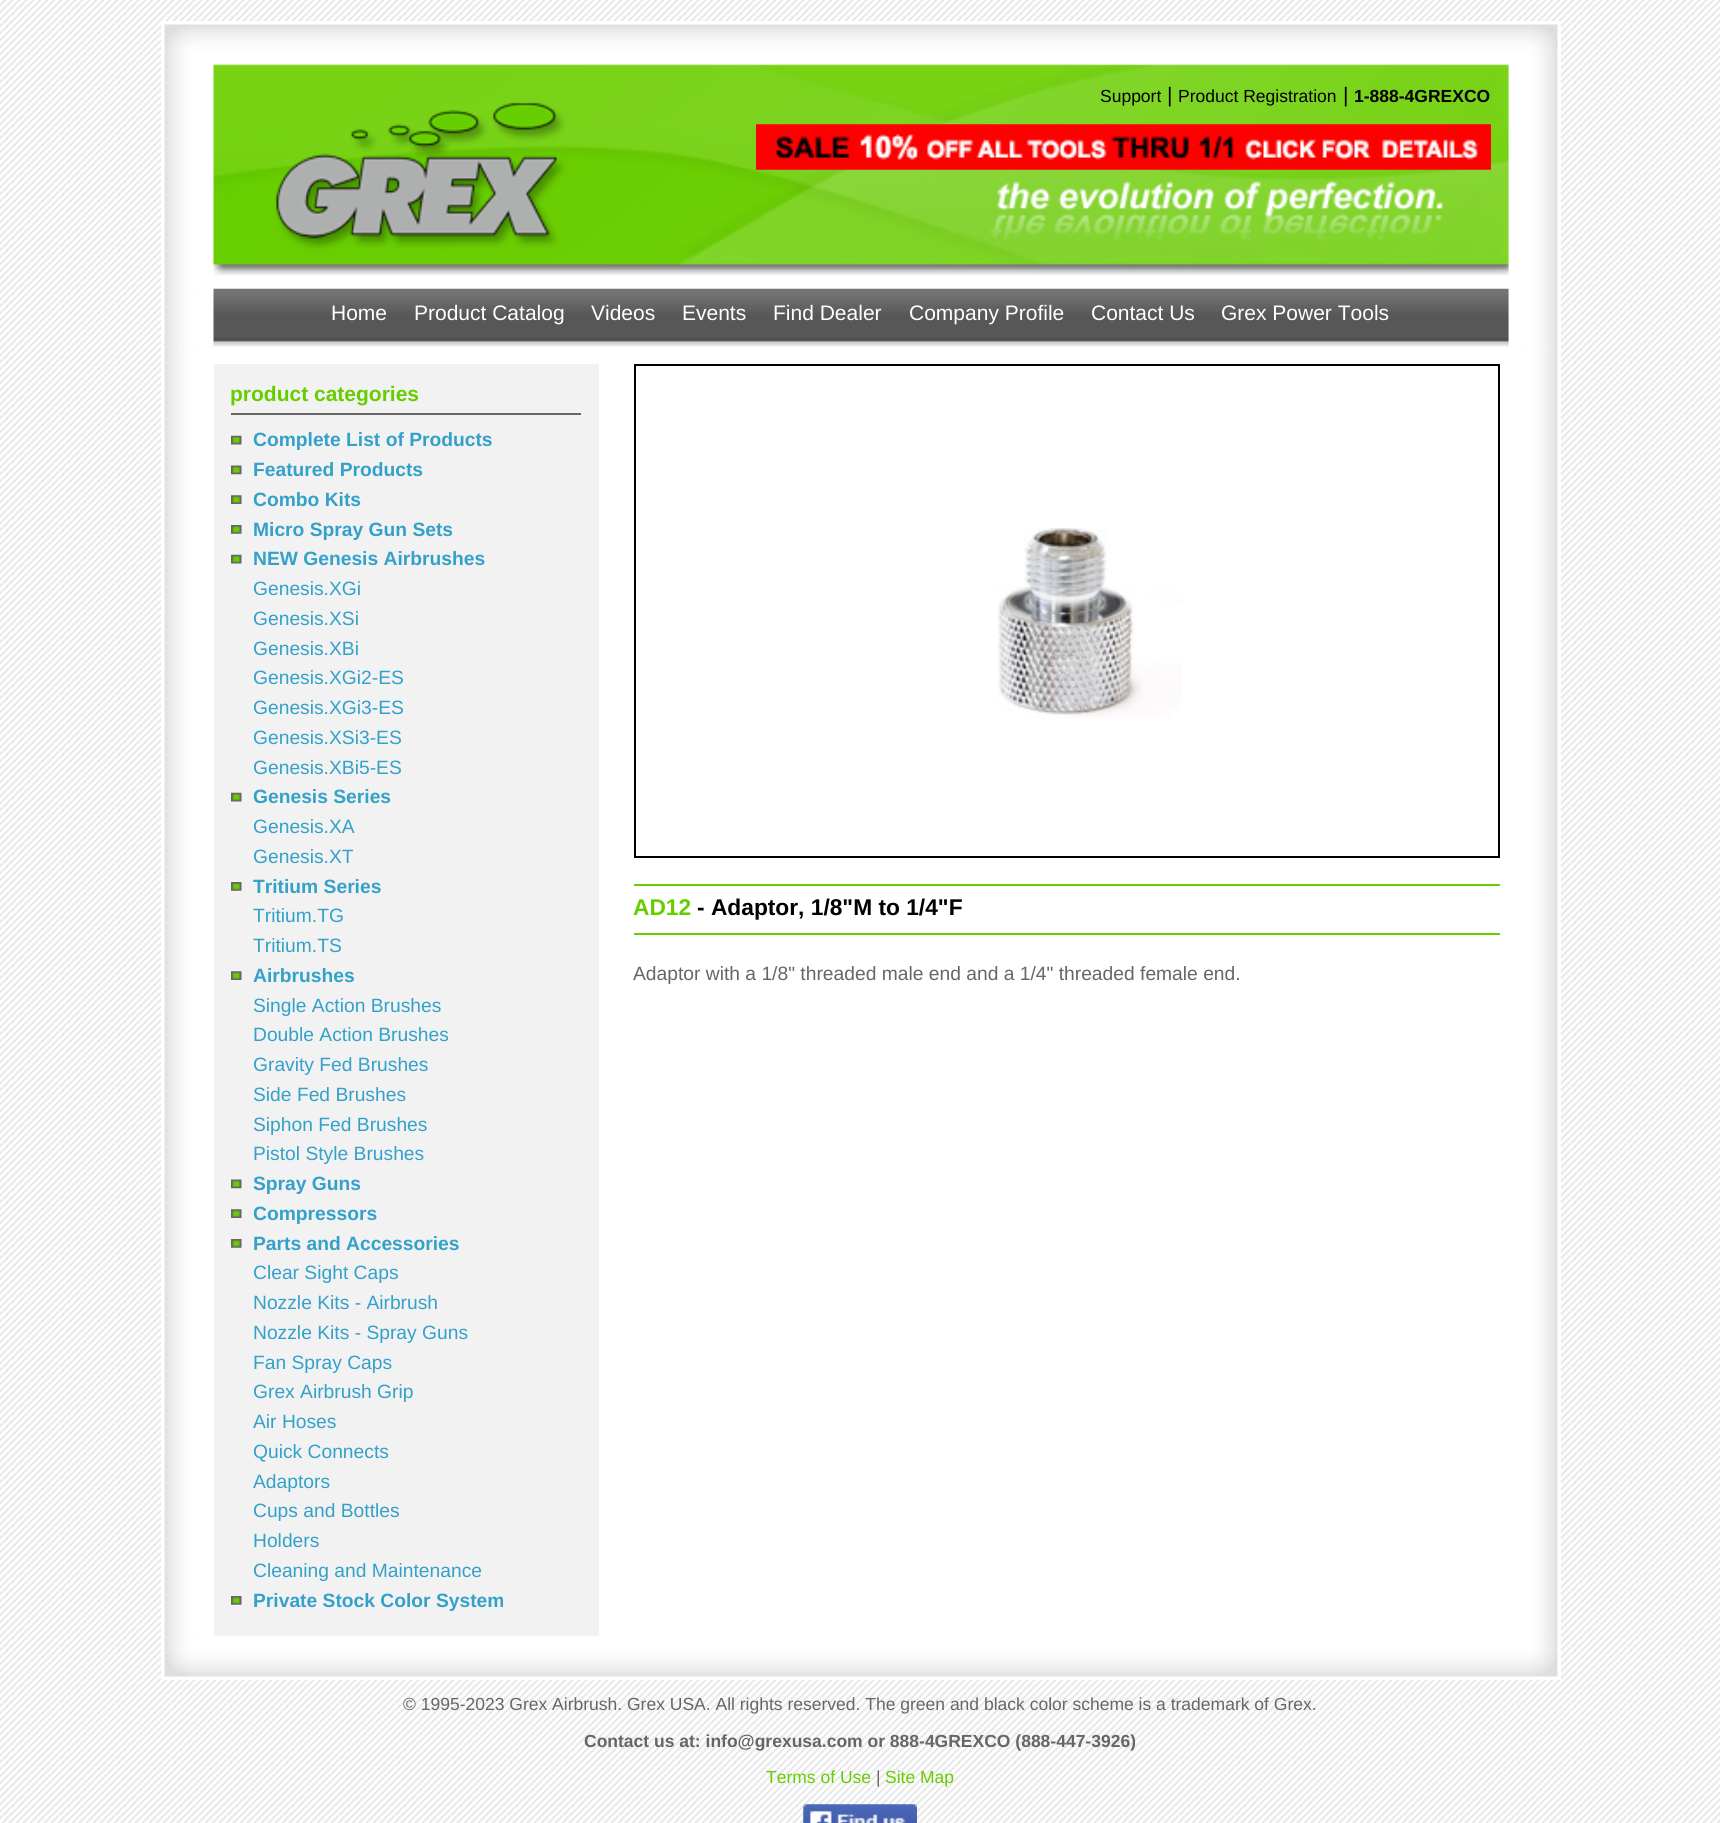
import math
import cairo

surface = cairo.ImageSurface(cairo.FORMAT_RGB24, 1720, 1823)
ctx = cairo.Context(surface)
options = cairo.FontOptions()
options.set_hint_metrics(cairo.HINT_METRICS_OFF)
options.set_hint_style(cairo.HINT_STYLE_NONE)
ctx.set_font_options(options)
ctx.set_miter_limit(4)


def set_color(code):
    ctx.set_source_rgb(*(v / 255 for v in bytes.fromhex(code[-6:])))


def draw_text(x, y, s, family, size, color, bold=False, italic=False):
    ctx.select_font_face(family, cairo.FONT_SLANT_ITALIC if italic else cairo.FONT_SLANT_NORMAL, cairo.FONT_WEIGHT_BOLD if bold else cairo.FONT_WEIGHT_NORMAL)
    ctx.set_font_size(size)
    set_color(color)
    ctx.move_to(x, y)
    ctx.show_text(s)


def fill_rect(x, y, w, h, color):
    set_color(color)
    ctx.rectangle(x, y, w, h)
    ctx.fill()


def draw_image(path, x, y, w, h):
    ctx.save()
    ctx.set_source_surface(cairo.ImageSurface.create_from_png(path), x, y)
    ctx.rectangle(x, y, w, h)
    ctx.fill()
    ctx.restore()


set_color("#ffffff")
ctx.paint()
draw_image("assets/img1.png", 0, 0, 1720, 1823)
draw_image("assets/img2.png", 161, 21, 1400, 268)
draw_text(1100, 102, "Support", "Liberation Sans", 17.5, "#000000")
draw_text(1167, 102, "|", "Liberation Sans", 21, "#000000")
draw_text(1178, 102, "Product Registration", "Liberation Sans", 17.5, "#000000")
draw_text(1343, 102, "|", "Liberation Sans", 21, "#000000")
draw_text(1354, 102, "1-888-4GREXCO", "Liberation Sans", 17.5, "#000000", bold=True)
draw_image("assets/img3.png", 756, 124, 735, 46)
draw_image("assets/img4.png", 161, 288, 1400, 59)
draw_text(331, 320, "Home", "Liberation Sans", 21, "#ffffff")
draw_text(414, 320, "Product Catalog", "Liberation Sans", 21, "#ffffff")
draw_text(591, 320, "Videos", "Liberation Sans", 21, "#ffffff")
draw_text(682, 320, "Events", "Liberation Sans", 21, "#ffffff")
draw_text(773, 320, "Find Dealer", "Liberation Sans", 21, "#ffffff")
draw_text(909, 320, "Company Profile", "Liberation Sans", 21, "#ffffff")
draw_text(1091, 320, "Contact Us", "Liberation Sans", 21, "#ffffff")
draw_text(1221, 320, "Grex Power Tools", "Liberation Sans", 21, "#ffffff")
draw_image("assets/img5.png", 161, 346, 1400, 1291)
fill_rect(214, 364, 385, 1272, "#f2f2f2")
fill_rect(231, 413, 350, 2, "#666666")
draw_text(230, 401, "product categories", "Liberation Sans", 21, "#66cd00", bold=True)
draw_image("assets/img6.png", 231, 435, 11, 10)
draw_text(253, 446, "Complete List of Products", "Liberation Sans", 19.25, "#33a1c9", bold=True)
draw_image("assets/img7.png", 231, 465, 11, 10)
draw_text(253, 476, "Featured Products", "Liberation Sans", 19.25, "#33a1c9", bold=True)
draw_image("assets/img8.png", 231, 495, 11, 9)
draw_text(253, 506, "Combo Kits", "Liberation Sans", 19.25, "#33a1c9", bold=True)
draw_image("assets/img9.png", 231, 525, 11, 9)
draw_text(253, 536, "Micro Spray Gun Sets", "Liberation Sans", 19.25, "#33a1c9", bold=True)
draw_image("assets/img6.png", 231, 554, 11, 10)
draw_text(253, 565, "NEW Genesis Airbrushes", "Liberation Sans", 19.25, "#33a1c9", bold=True)
draw_text(253, 595, "Genesis.XGi", "Liberation Sans", 19.25, "#33a1c9")
draw_text(253, 625, "Genesis.XSi", "Liberation Sans", 19.25, "#33a1c9")
draw_text(253, 655, "Genesis.XBi", "Liberation Sans", 19.25, "#33a1c9")
draw_text(253, 684, "Genesis.XGi2-ES", "Liberation Sans", 19.25, "#33a1c9")
draw_text(253, 714, "Genesis.XGi3-ES", "Liberation Sans", 19.25, "#33a1c9")
draw_text(253, 744, "Genesis.XSi3-ES", "Liberation Sans", 19.25, "#33a1c9")
draw_text(253, 774, "Genesis.XBi5-ES", "Liberation Sans", 19.25, "#33a1c9")
draw_image("assets/img6.png", 231, 792, 11, 10)
draw_text(253, 803, "Genesis Series", "Liberation Sans", 19.25, "#33a1c9", bold=True)
draw_text(253, 833, "Genesis.XA", "Liberation Sans", 19.25, "#33a1c9")
draw_text(253, 863, "Genesis.XT", "Liberation Sans", 19.25, "#33a1c9")
draw_image("assets/img9.png", 231, 882, 11, 9)
draw_text(253, 893, "Tritium Series", "Liberation Sans", 19.25, "#33a1c9", bold=True)
draw_text(253, 922, "Tritium.TG", "Liberation Sans", 19.25, "#33a1c9")
draw_text(253, 952, "Tritium.TS", "Liberation Sans", 19.25, "#33a1c9")
draw_image("assets/img8.png", 231, 971, 11, 9)
draw_text(253, 982, "Airbrushes", "Liberation Sans", 19.25, "#33a1c9", bold=True)
draw_text(253, 1012, "Single Action Brushes", "Liberation Sans", 19.25, "#33a1c9")
draw_text(253, 1041, "Double Action Brushes", "Liberation Sans", 19.25, "#33a1c9")
draw_text(253, 1071, "Gravity Fed Brushes", "Liberation Sans", 19.25, "#33a1c9")
draw_text(253, 1101, "Side Fed Brushes", "Liberation Sans", 19.25, "#33a1c9")
draw_text(253, 1131, "Siphon Fed Brushes", "Liberation Sans", 19.25, "#33a1c9")
draw_text(253, 1160, "Pistol Style Brushes", "Liberation Sans", 19.25, "#33a1c9")
draw_image("assets/img7.png", 231, 1179, 11, 10)
draw_text(253, 1190, "Spray Guns", "Liberation Sans", 19.25, "#33a1c9", bold=True)
draw_image("assets/img8.png", 231, 1209, 11, 9)
draw_text(253, 1220, "Compressors", "Liberation Sans", 19.25, "#33a1c9", bold=True)
draw_image("assets/img9.png", 231, 1239, 11, 9)
draw_text(253, 1250, "Parts and Accessories", "Liberation Sans", 19.25, "#33a1c9", bold=True)
draw_text(253, 1279, "Clear Sight Caps", "Liberation Sans", 19.25, "#33a1c9")
draw_text(253, 1309, "Nozzle Kits - Airbrush", "Liberation Sans", 19.25, "#33a1c9")
draw_text(253, 1339, "Nozzle Kits - Spray Guns", "Liberation Sans", 19.25, "#33a1c9")
draw_text(253, 1369, "Fan Spray Caps", "Liberation Sans", 19.25, "#33a1c9")
draw_text(253, 1398, "Grex Airbrush Grip", "Liberation Sans", 19.25, "#33a1c9")
draw_text(253, 1428, "Air Hoses", "Liberation Sans", 19.25, "#33a1c9")
draw_text(253, 1458, "Quick Connects", "Liberation Sans", 19.25, "#33a1c9")
draw_text(253, 1488, "Adaptors", "Liberation Sans", 19.25, "#33a1c9")
draw_text(253, 1517, "Cups and Bottles", "Liberation Sans", 19.25, "#33a1c9")
draw_text(253, 1547, "Holders", "Liberation Sans", 19.25, "#33a1c9")
draw_text(253, 1577, "Cleaning and Maintenance", "Liberation Sans", 19.25, "#33a1c9")
draw_image("assets/img9.png", 231, 1596, 11, 9)
draw_text(253, 1607, "Private Stock Color System", "Liberation Sans", 19.25, "#33a1c9", bold=True)
ctx.rectangle(635, 365, 864, 492)
set_color("#000000")
ctx.stroke()
draw_image("assets/img10.png", 997, 528, 185, 191)
fill_rect(634, 884, 866, 2, "#66cd00")
fill_rect(634, 933, 866, 2, "#66cd00")
draw_text(633, 915, "AD12", "Liberation Sans", 22.75, "#66cd00", bold=True)
draw_text(697, 915, "- Adaptor, 1/8\"M to 1/4\"F", "Liberation Sans", 22.75, "#000000", bold=True)
draw_text(633, 980, "Adaptor with a 1/8\" threaded male end and a 1/4\" threaded female end.", "Liberation Sans", 19.25, "#666666")
draw_image("assets/img11.png", 161, 1636, 1400, 44)
draw_text(403, 1710, "© 1995-2023 Grex Airbrush. Grex USA. All rights reserved. The green and black color scheme is a trademark of Grex.", "Liberation Sans", 17.5, "#666666")
draw_text(584, 1747, "Contact us at: info@grexusa.com or 888-4GREXCO (888-447-3926)", "Liberation Sans", 17.5, "#666666", bold=True)
draw_text(766, 1783, "Terms of Use", "Liberation Sans", 17.5, "#66cd00")
draw_text(876, 1783, "|", "Liberation Sans", 17.5, "#666666")
draw_text(885, 1783, "Site Map", "Liberation Sans", 17.5, "#66cd00")
draw_image("assets/img12.png", 803, 1804, 114, 19)
surface.write_to_png("output.png")
